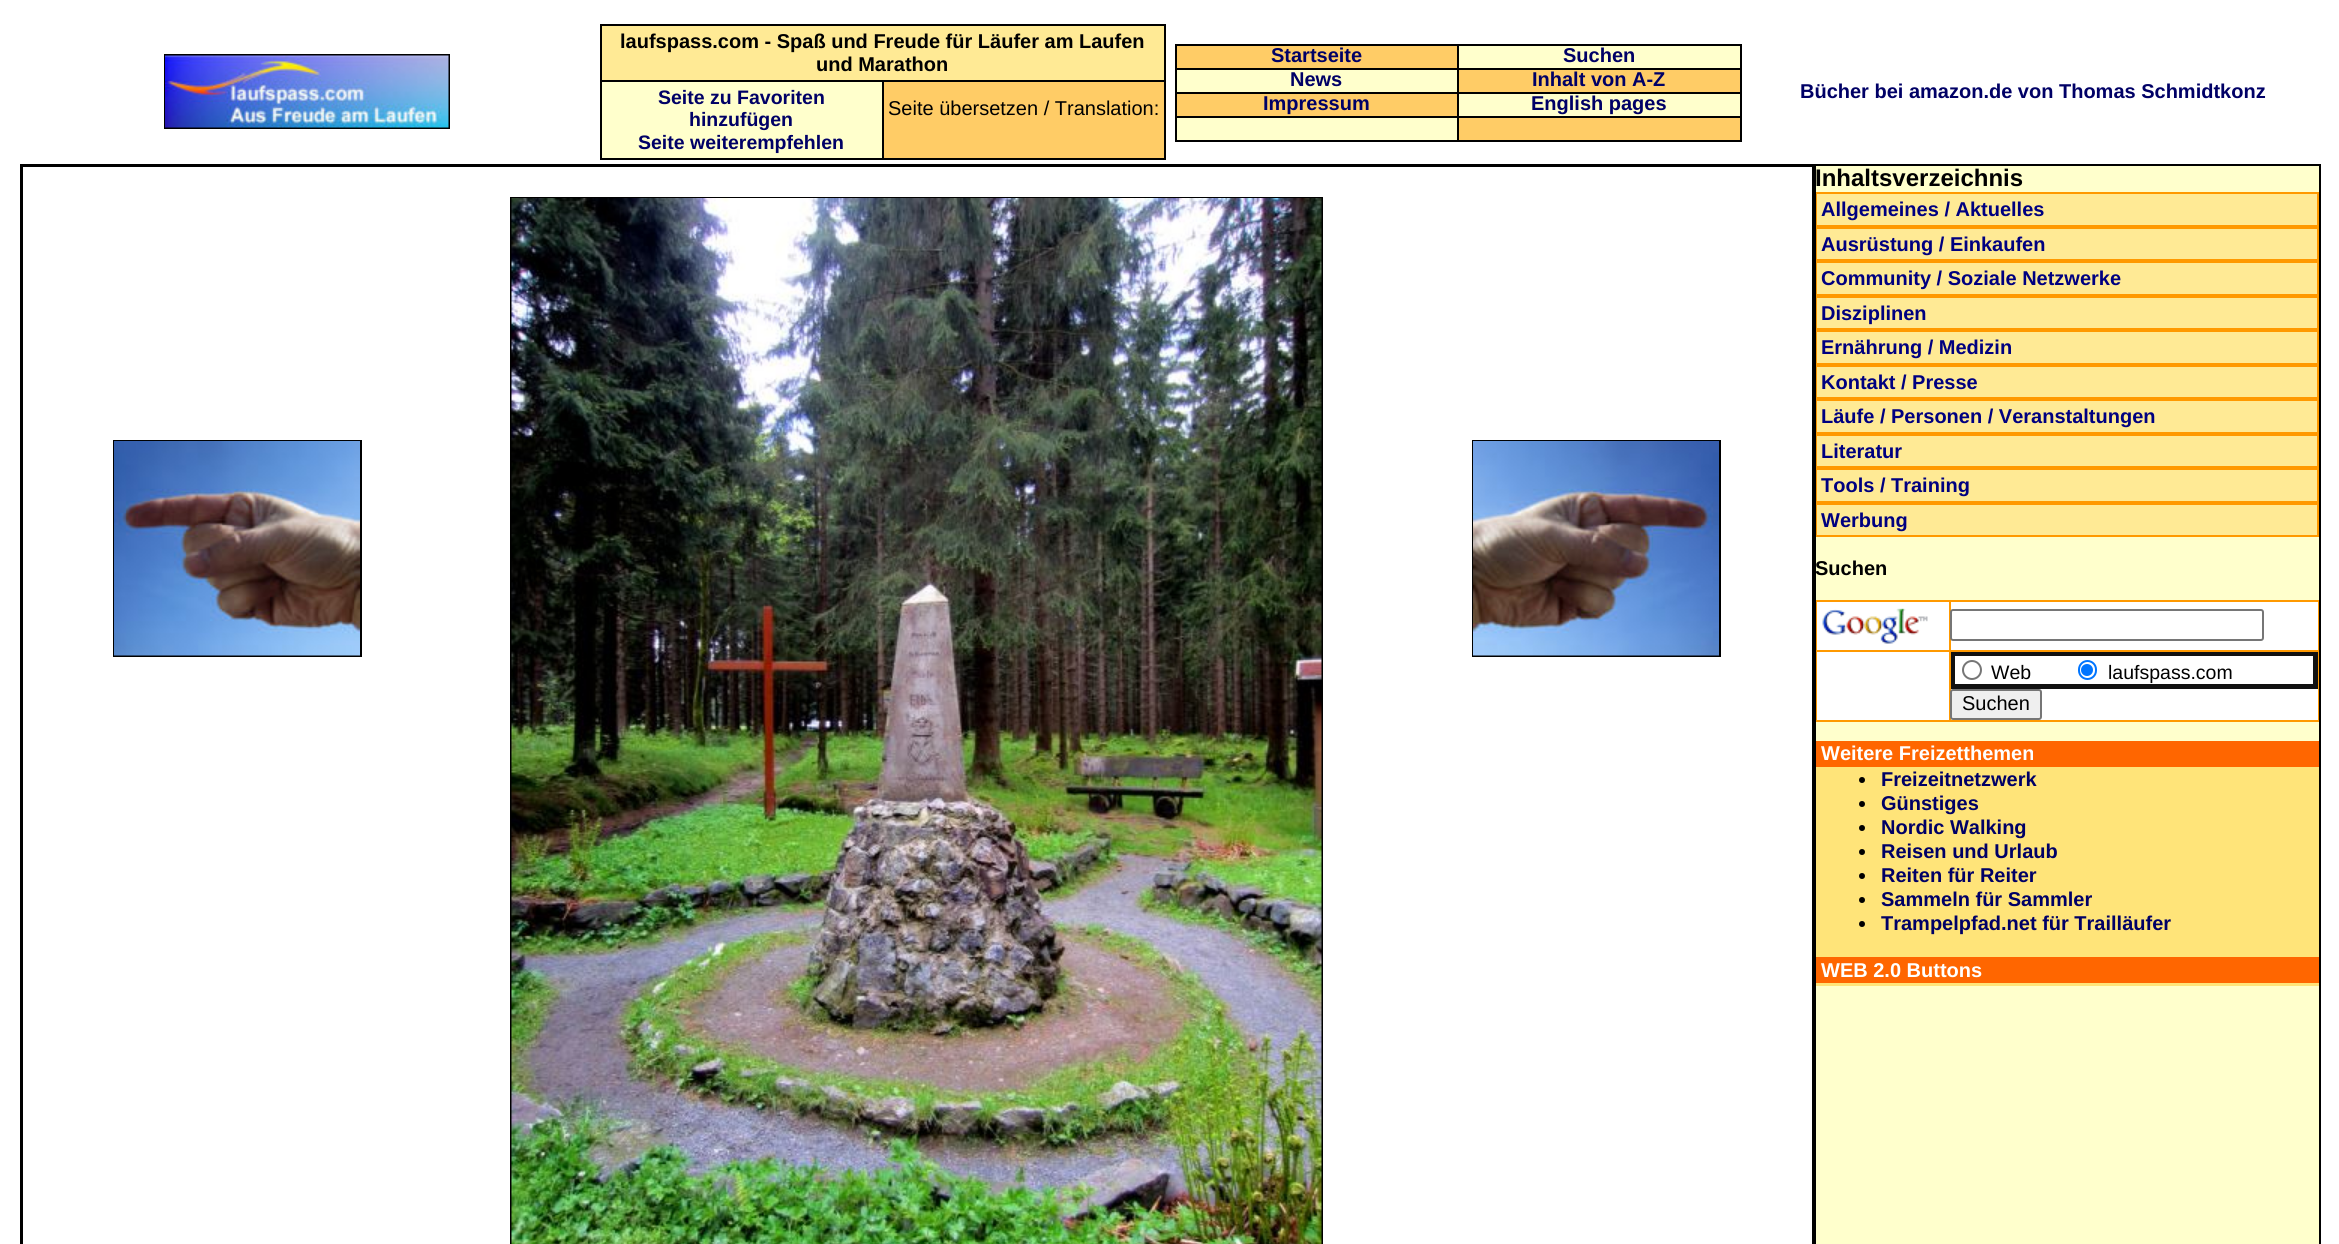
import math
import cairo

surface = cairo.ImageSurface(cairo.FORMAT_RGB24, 2339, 1244)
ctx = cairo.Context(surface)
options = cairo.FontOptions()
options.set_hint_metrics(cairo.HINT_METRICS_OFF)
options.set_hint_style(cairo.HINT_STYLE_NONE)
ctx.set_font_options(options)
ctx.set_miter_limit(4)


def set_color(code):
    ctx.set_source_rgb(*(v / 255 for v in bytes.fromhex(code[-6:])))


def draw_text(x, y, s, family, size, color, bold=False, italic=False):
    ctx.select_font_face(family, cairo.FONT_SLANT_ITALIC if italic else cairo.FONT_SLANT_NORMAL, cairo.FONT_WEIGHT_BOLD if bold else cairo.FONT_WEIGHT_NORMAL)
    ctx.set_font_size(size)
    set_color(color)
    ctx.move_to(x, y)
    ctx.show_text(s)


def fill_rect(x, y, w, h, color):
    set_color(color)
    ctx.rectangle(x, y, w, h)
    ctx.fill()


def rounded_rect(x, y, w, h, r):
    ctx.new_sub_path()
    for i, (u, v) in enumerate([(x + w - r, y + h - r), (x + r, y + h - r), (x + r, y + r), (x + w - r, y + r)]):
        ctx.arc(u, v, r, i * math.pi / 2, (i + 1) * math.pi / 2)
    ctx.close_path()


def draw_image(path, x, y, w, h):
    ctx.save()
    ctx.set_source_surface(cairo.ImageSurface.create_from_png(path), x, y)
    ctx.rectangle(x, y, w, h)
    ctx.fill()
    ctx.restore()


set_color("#ffffff")
ctx.paint()
ctx.rectangle(165, 55, 284, 73)
set_color("#000000")
ctx.stroke()
draw_image("assets/img1.png", 165, 55, 284, 73)
fill_rect(602, 26, 562, 54, "#ffea95")
fill_rect(600, 24, 566, 2, "#000000")
fill_rect(1164, 24, 2, 135, "#000000")
fill_rect(600, 158, 566, 2, "#000000")
fill_rect(600, 24, 2, 135, "#000000")
draw_text(620, 48, "laufspass.com - Spaß und Freude für Läufer am Laufen", "Liberation Sans", 20, "#000000", bold=True)
draw_text(816, 71, "und Marathon", "Liberation Sans", 20, "#000000", bold=True)
fill_rect(602, 82, 280, 76, "#ffffcc")
fill_rect(882, 80, 284, 2, "#000000")
fill_rect(882, 80, 2, 79, "#000000")
fill_rect(600, 80, 284, 2, "#000000")
draw_text(658, 104, "Seite zu Favoriten", "Liberation Sans", 19.5, "#000066", bold=True)
draw_text(689, 126, "hinzufügen", "Liberation Sans", 19.5, "#000066", bold=True)
draw_text(638, 149, "Seite weiterempfehlen", "Liberation Sans", 19.5, "#000066", bold=True)
fill_rect(884, 82, 280, 76, "#ffcc66")
draw_text(888, 115, "Seite übersetzen / Translation:", "Liberation Sans", 20, "#000000")
fill_rect(1177, 46, 563, 94, "#ffffcc")
fill_rect(1175, 44, 567, 2, "#000000")
fill_rect(1740, 44, 2, 97, "#000000")
fill_rect(1175, 140, 567, 2, "#000000")
fill_rect(1175, 44, 2, 97, "#000000")
fill_rect(1177, 46, 280, 22, "#ffcc66")
draw_text(1271, 62, "Startseite", "Liberation Sans", 20, "#000066", bold=True)
fill_rect(1457, 68, 285, 2, "#000000")
fill_rect(1457, 92, 285, 2, "#000000")
fill_rect(1457, 116, 285, 2, "#000000")
fill_rect(1457, 116, 2, 25, "#000000")
fill_rect(1175, 116, 283, 2, "#000000")
fill_rect(1457, 92, 2, 25, "#000000")
fill_rect(1175, 92, 283, 2, "#000000")
fill_rect(1457, 68, 2, 25, "#000000")
fill_rect(1175, 68, 283, 2, "#000000")
fill_rect(1457, 44, 2, 25, "#000000")
draw_text(1563, 62, "Suchen", "Liberation Sans", 20, "#000066", bold=True)
draw_text(1290, 86, "News", "Liberation Sans", 20, "#000066", bold=True)
fill_rect(1459, 70, 281, 22, "#ffcc66")
draw_text(1532, 86, "Inhalt von A-Z", "Liberation Sans", 20, "#000066", bold=True)
fill_rect(1177, 94, 280, 22, "#ffcc66")
draw_text(1263, 110, "Impressum", "Liberation Sans", 20, "#000066", bold=True)
draw_text(1531, 110, "English pages", "Liberation Sans", 20, "#000066", bold=True)
fill_rect(1459, 118, 281, 22, "#ffcc66")
draw_text(1800, 98, "Bücher bei amazon.de von Thomas Schmidtkonz", "Liberation Sans", 20, "#000066", bold=True)
fill_rect(1816, 166, 503, 1078, "#ffffcc")
fill_rect(21, 166, 1793, 1, "#000000")
fill_rect(1812, 165, 2, 1079, "#000000")
fill_rect(22, 165, 1, 1079, "#000000")
fill_rect(20, 164, 2301, 2, "#000000")
fill_rect(2319, 164, 2, 1080, "#000000")
fill_rect(20, 164, 2, 1080, "#000000")
ctx.rectangle(114, 441, 247, 215)
ctx.stroke()
draw_image("assets/img2.png", 114, 441, 246, 215)
ctx.rectangle(511, 198, 811, 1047)
ctx.stroke()
draw_image("assets/img3.png", 511, 198, 811, 1046)
ctx.rectangle(1473, 441, 247, 215)
ctx.stroke()
draw_image("assets/img4.png", 1473, 441, 246, 215)
set_color("#ffea95")
ctx.rectangle(1816, 193, 502, 33)
ctx.fill_preserve()
set_color("#ff9900")
ctx.stroke()
set_color("#ffea95")
ctx.rectangle(1816, 228, 502, 32)
ctx.fill_preserve()
set_color("#ff9900")
ctx.stroke()
set_color("#ffea95")
ctx.rectangle(1816, 262, 502, 33)
ctx.fill_preserve()
set_color("#ff9900")
ctx.stroke()
set_color("#ffea95")
ctx.rectangle(1816, 297, 502, 32)
ctx.fill_preserve()
set_color("#ff9900")
ctx.stroke()
set_color("#ffea95")
ctx.rectangle(1816, 331, 502, 33)
ctx.fill_preserve()
set_color("#ff9900")
ctx.stroke()
set_color("#ffea95")
ctx.rectangle(1816, 366, 502, 32)
ctx.fill_preserve()
set_color("#ff9900")
ctx.stroke()
set_color("#ffea95")
ctx.rectangle(1816, 400, 502, 33)
ctx.fill_preserve()
set_color("#ff9900")
ctx.stroke()
set_color("#ffea95")
ctx.rectangle(1816, 435, 502, 32)
ctx.fill_preserve()
set_color("#ff9900")
ctx.stroke()
set_color("#ffea95")
ctx.rectangle(1816, 469, 502, 33)
ctx.fill_preserve()
set_color("#ff9900")
ctx.stroke()
set_color("#ffea95")
ctx.rectangle(1816, 504, 502, 32)
ctx.fill_preserve()
set_color("#ff9900")
ctx.stroke()
fill_rect(1815, 600, 504, 2, "#ff9900")
fill_rect(2318, 600, 1, 122, "#ff9900")
fill_rect(1815, 720, 504, 2, "#ff9900")
fill_rect(1817, 602, 501, 118, "#ffffff")
fill_rect(1816, 600, 1, 122, "#ff9900")
fill_rect(1950, 652, 368, 4, "#111111")
fill_rect(2313, 651, 5, 38, "#111111")
fill_rect(1950, 684, 368, 5, "#111111")
fill_rect(1951, 651, 4, 38, "#111111")
fill_rect(1949, 650, 370, 2, "#ff9900")
fill_rect(1949, 650, 2, 72, "#ff9900")
fill_rect(1815, 650, 135, 2, "#ff9900")
fill_rect(1815, 983, 504, 3, "#ffe479")
fill_rect(1814, 164, 2, 1080, "#000000")
draw_text(1815, 186, "Inhaltsverzeichnis", "Liberation Sans", 24, "#000000", bold=True)
draw_text(1821, 216, "Allgemeines / Aktuelles", "Liberation Sans", 20, "#000080", bold=True)
draw_text(1821, 251, "Ausrüstung / Einkaufen", "Liberation Sans", 20, "#000080", bold=True)
draw_text(1821, 285, "Community / Soziale Netzwerke", "Liberation Sans", 20, "#000080", bold=True)
draw_text(1821, 320, "Disziplinen", "Liberation Sans", 20, "#000080", bold=True)
draw_text(1821, 354, "Ernährung / Medizin", "Liberation Sans", 20, "#000080", bold=True)
draw_text(1821, 389, "Kontakt / Presse", "Liberation Sans", 20, "#000080", bold=True)
draw_text(1821, 423, "Läufe / Personen / Veranstaltungen", "Liberation Sans", 20, "#000080", bold=True)
draw_text(1821, 458, "Literatur", "Liberation Sans", 20, "#000080", bold=True)
draw_text(1821, 492, "Tools / Training", "Liberation Sans", 20, "#000080", bold=True)
draw_text(1821, 527, "Werbung", "Liberation Sans", 20, "#000080", bold=True)
draw_text(1815, 575, "Suchen", "Liberation Sans", 20, "#000000", bold=True)
draw_image("assets/img5.png", 1822, 608, 106, 36)
fill_rect(1949, 600, 2, 51, "#ff9900")
set_color("#ffffff")
rounded_rect(1951, 610, 312, 30, 2)
ctx.fill_preserve()
set_color("#767676")
ctx.stroke()
ctx.arc(1972, 670, 9, 0, 2 * math.pi)
ctx.stroke()
draw_text(1991, 679, "Web", "Liberation Sans", 19.5, "#000000")
rounded_rect(2079, 661, 17, 18, 8.5)
set_color("#0075ff")
ctx.stroke()
ctx.arc(2087, 670, 6, 0, 2 * math.pi)
ctx.fill()
draw_text(2108, 679, "laufspass.com", "Liberation Sans", 19.5, "#000000")
set_color("#efefef")
rounded_rect(1951, 690, 90, 29, 2)
ctx.fill_preserve()
set_color("#767676")
ctx.stroke()
draw_text(1962, 710, "Suchen", "Liberation Sans", 20, "#000000")
fill_rect(1816, 741, 503, 26, "#ff6600")
draw_text(1821, 760, "Weitere Freizetthemen", "Liberation Sans", 20, "#ffffff", bold=True)
fill_rect(1816, 767, 503, 190, "#ffe479")
set_color("#000000")
ctx.new_path()
ctx.arc(1862, 780, 3, 0, 2 * math.pi)
ctx.fill()
draw_text(1881, 786, "Freizeitnetzwerk", "Liberation Sans", 20, "#000066", bold=True)
set_color("#000000")
ctx.new_path()
ctx.arc(1862, 804, 3, 0, 2 * math.pi)
ctx.fill()
draw_text(1881, 810, "Günstiges", "Liberation Sans", 20, "#000066", bold=True)
set_color("#000000")
ctx.new_path()
ctx.arc(1862, 828, 3, 0, 2 * math.pi)
ctx.fill()
draw_text(1881, 834, "Nordic Walking", "Liberation Sans", 20, "#000066", bold=True)
set_color("#000000")
ctx.new_path()
ctx.arc(1862, 852, 3, 0, 2 * math.pi)
ctx.fill()
draw_text(1881, 858, "Reisen und Urlaub", "Liberation Sans", 20, "#000066", bold=True)
set_color("#000000")
ctx.new_path()
ctx.arc(1862, 876, 3, 0, 2 * math.pi)
ctx.fill()
draw_text(1881, 882, "Reiten für Reiter", "Liberation Sans", 20, "#000066", bold=True)
set_color("#000000")
ctx.new_path()
ctx.arc(1862, 900, 3, 0, 2 * math.pi)
ctx.fill()
draw_text(1881, 906, "Sammeln für Sammler", "Liberation Sans", 20, "#000066", bold=True)
set_color("#000000")
ctx.new_path()
ctx.arc(1862, 924, 3, 0, 2 * math.pi)
ctx.fill()
draw_text(1881, 930, "Trampelpfad.net für Trailläufer", "Liberation Sans", 20, "#000066", bold=True)
fill_rect(1816, 957, 503, 26, "#ff6600")
draw_text(1821, 977, "WEB 2.0 Buttons", "Liberation Sans", 20, "#ffffff", bold=True)
surface.write_to_png("output.png")
